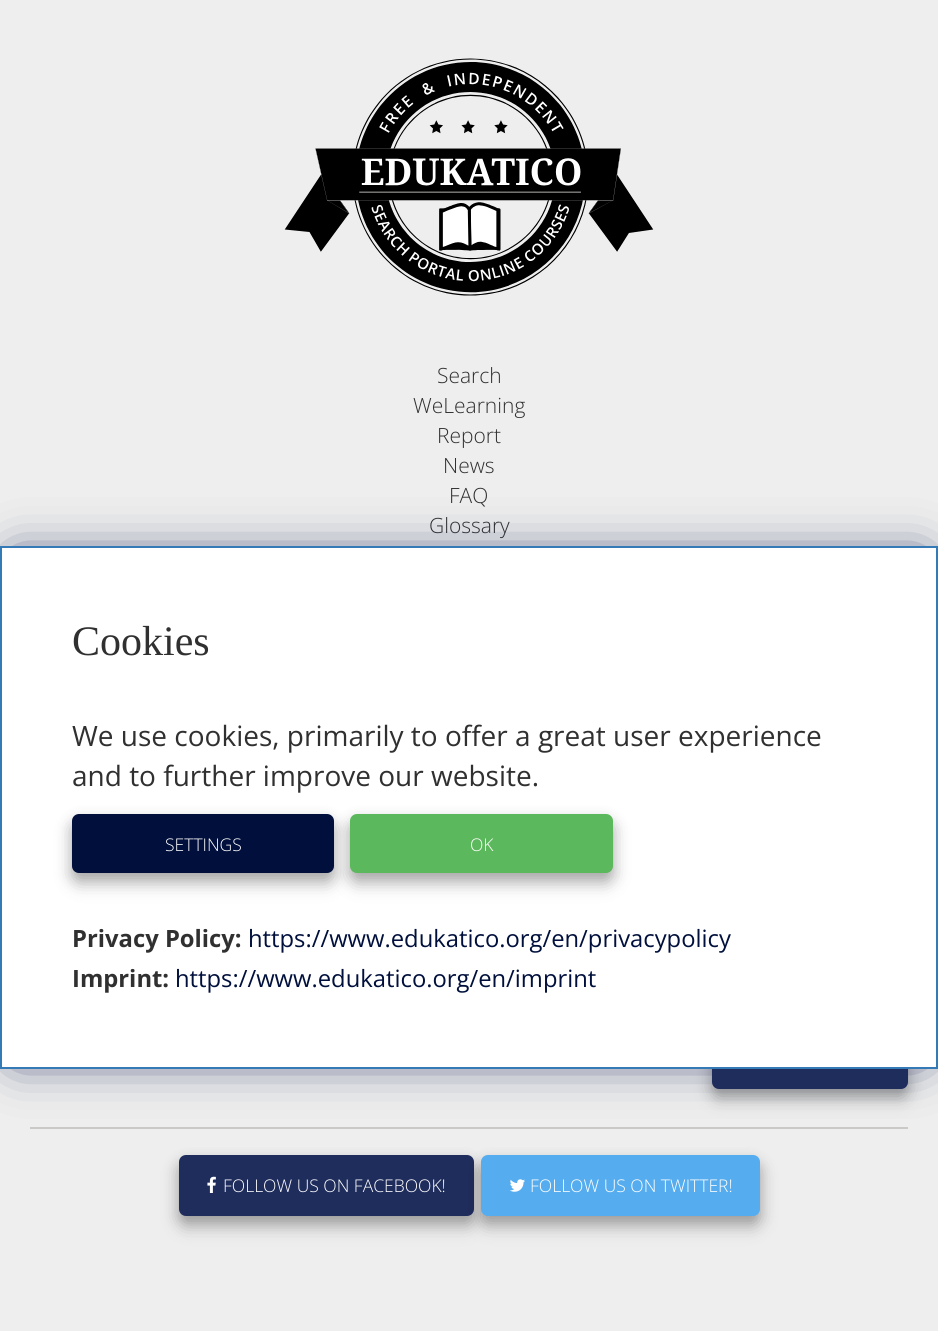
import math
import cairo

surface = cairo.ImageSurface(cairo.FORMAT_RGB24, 938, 1331)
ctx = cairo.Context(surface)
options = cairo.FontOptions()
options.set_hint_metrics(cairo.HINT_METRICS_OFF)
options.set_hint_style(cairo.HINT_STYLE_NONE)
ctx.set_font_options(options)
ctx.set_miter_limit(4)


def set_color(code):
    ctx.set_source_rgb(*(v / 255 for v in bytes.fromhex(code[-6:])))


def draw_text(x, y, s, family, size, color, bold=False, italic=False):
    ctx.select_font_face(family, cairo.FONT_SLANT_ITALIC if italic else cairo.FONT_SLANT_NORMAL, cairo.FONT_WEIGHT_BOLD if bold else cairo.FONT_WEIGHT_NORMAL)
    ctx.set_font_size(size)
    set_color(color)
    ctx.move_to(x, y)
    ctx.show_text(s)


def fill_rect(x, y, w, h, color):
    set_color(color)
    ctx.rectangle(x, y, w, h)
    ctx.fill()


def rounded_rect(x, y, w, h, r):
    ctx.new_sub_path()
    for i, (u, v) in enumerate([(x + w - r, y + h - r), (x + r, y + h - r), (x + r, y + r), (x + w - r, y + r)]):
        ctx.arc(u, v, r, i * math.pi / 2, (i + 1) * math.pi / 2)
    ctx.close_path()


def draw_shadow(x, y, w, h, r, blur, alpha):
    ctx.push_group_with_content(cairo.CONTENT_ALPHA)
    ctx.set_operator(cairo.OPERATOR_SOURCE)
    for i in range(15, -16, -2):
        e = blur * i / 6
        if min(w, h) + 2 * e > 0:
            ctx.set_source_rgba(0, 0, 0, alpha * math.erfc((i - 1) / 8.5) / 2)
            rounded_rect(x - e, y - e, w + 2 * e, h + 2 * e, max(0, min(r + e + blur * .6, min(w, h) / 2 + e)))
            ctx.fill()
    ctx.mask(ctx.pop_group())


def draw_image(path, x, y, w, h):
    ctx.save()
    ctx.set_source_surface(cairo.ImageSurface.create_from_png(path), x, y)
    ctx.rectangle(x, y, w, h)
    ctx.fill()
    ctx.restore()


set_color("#eeeeee")
ctx.paint()
draw_image("assets/img1.png", 284, 58, 370, 238)
draw_text(437, 383, "Search", "Open Sans Light", 21, "#303030")
draw_text(413, 413, "WeLearning", "Open Sans Light", 21, "#303030")
draw_text(437, 443, "Report", "Open Sans Light", 21, "#303030")
draw_text(443, 473, "News", "Open Sans Light", 21, "#303030")
draw_text(449, 503, "FAQ", "Open Sans Light", 21, "#303030")
draw_text(429, 533, "Glossary", "Open Sans Light", 21, "#303030")
set_color("#000000")
draw_shadow(712, 1040, 196, 59, 7, 9, 0.19)
draw_shadow(712, 1036, 196, 60, 7, 7, 0.2)
set_color("#1f2d5d")
rounded_rect(712, 1029, 196, 60, 7)
ctx.fill()
fill_rect(30, 1127, 878, 2, "#cbc8c8")
set_color("#000000")
draw_shadow(179, 1166, 295, 61, 7, 9, 0.19)
draw_shadow(179, 1162, 295, 61, 7, 7, 0.2)
set_color("#1f2d5d")
rounded_rect(179, 1155, 295, 61, 7)
ctx.fill()
draw_image("assets/img2.png", 207, 1176, 9, 17)
draw_text(223, 1192, "FOLLOW US ON FACEBOOK!", "Open Sans Light", 17.5, "#ffffff")
set_color("#000000")
draw_shadow(481, 1166, 279, 61, 7, 9, 0.19)
draw_shadow(481, 1162, 279, 61, 7, 7, 0.2)
set_color("#55acee")
rounded_rect(481, 1155, 279, 61, 7)
ctx.fill()
draw_image("assets/img3.png", 509, 1179, 16, 13)
draw_text(530, 1192, "FOLLOW US ON TWITTER!", "Open Sans Light", 17.5, "#ffffff")
set_color("#1f2d5d")
draw_shadow(16, 562, 906, 492, 0, 26, 1)
set_color("#ffffff")
ctx.rectangle(1, 547, 936, 521)
ctx.fill_preserve()
set_color("#337ab7")
ctx.stroke()
draw_text(72, 655, "Cookies", "Liberation Serif", 42, "#303030")
draw_text(72, 746, "We use cookies, primarily to offer a great user experience", "Open Sans", 28, "#303030")
draw_text(72, 786, "and to further improve our website.", "Open Sans", 28, "#303030")
set_color("#000000")
draw_shadow(72, 824, 262, 60, 7, 9, 0.19)
draw_shadow(72, 821, 262, 59, 7, 7, 0.2)
set_color("#000f3b")
rounded_rect(72, 814, 262, 59, 7)
ctx.fill()
draw_text(165, 851, "SETTINGS", "Open Sans Light", 17.5, "#ffffff")
set_color("#000000")
draw_shadow(350, 824, 263, 60, 7, 9, 0.19)
draw_shadow(350, 821, 263, 59, 7, 7, 0.2)
set_color("#5cb85c")
rounded_rect(350, 814, 263, 59, 7)
ctx.fill()
draw_text(470, 851, "OK", "Open Sans Light", 17.5, "#ffffff")
draw_text(72, 947, "Privacy Policy:", "Open Sans", 23.8, "#303030", bold=True)
draw_text(248, 947, "https://www.edukatico.org/en/privacypolicy", "Open Sans", 23.8, "#000f3b")
draw_text(72, 987, "Imprint:", "Open Sans", 23.8, "#303030", bold=True)
draw_text(175, 987, "https://www.edukatico.org/en/imprint", "Open Sans", 23.8, "#000f3b")
surface.write_to_png("output.png")
